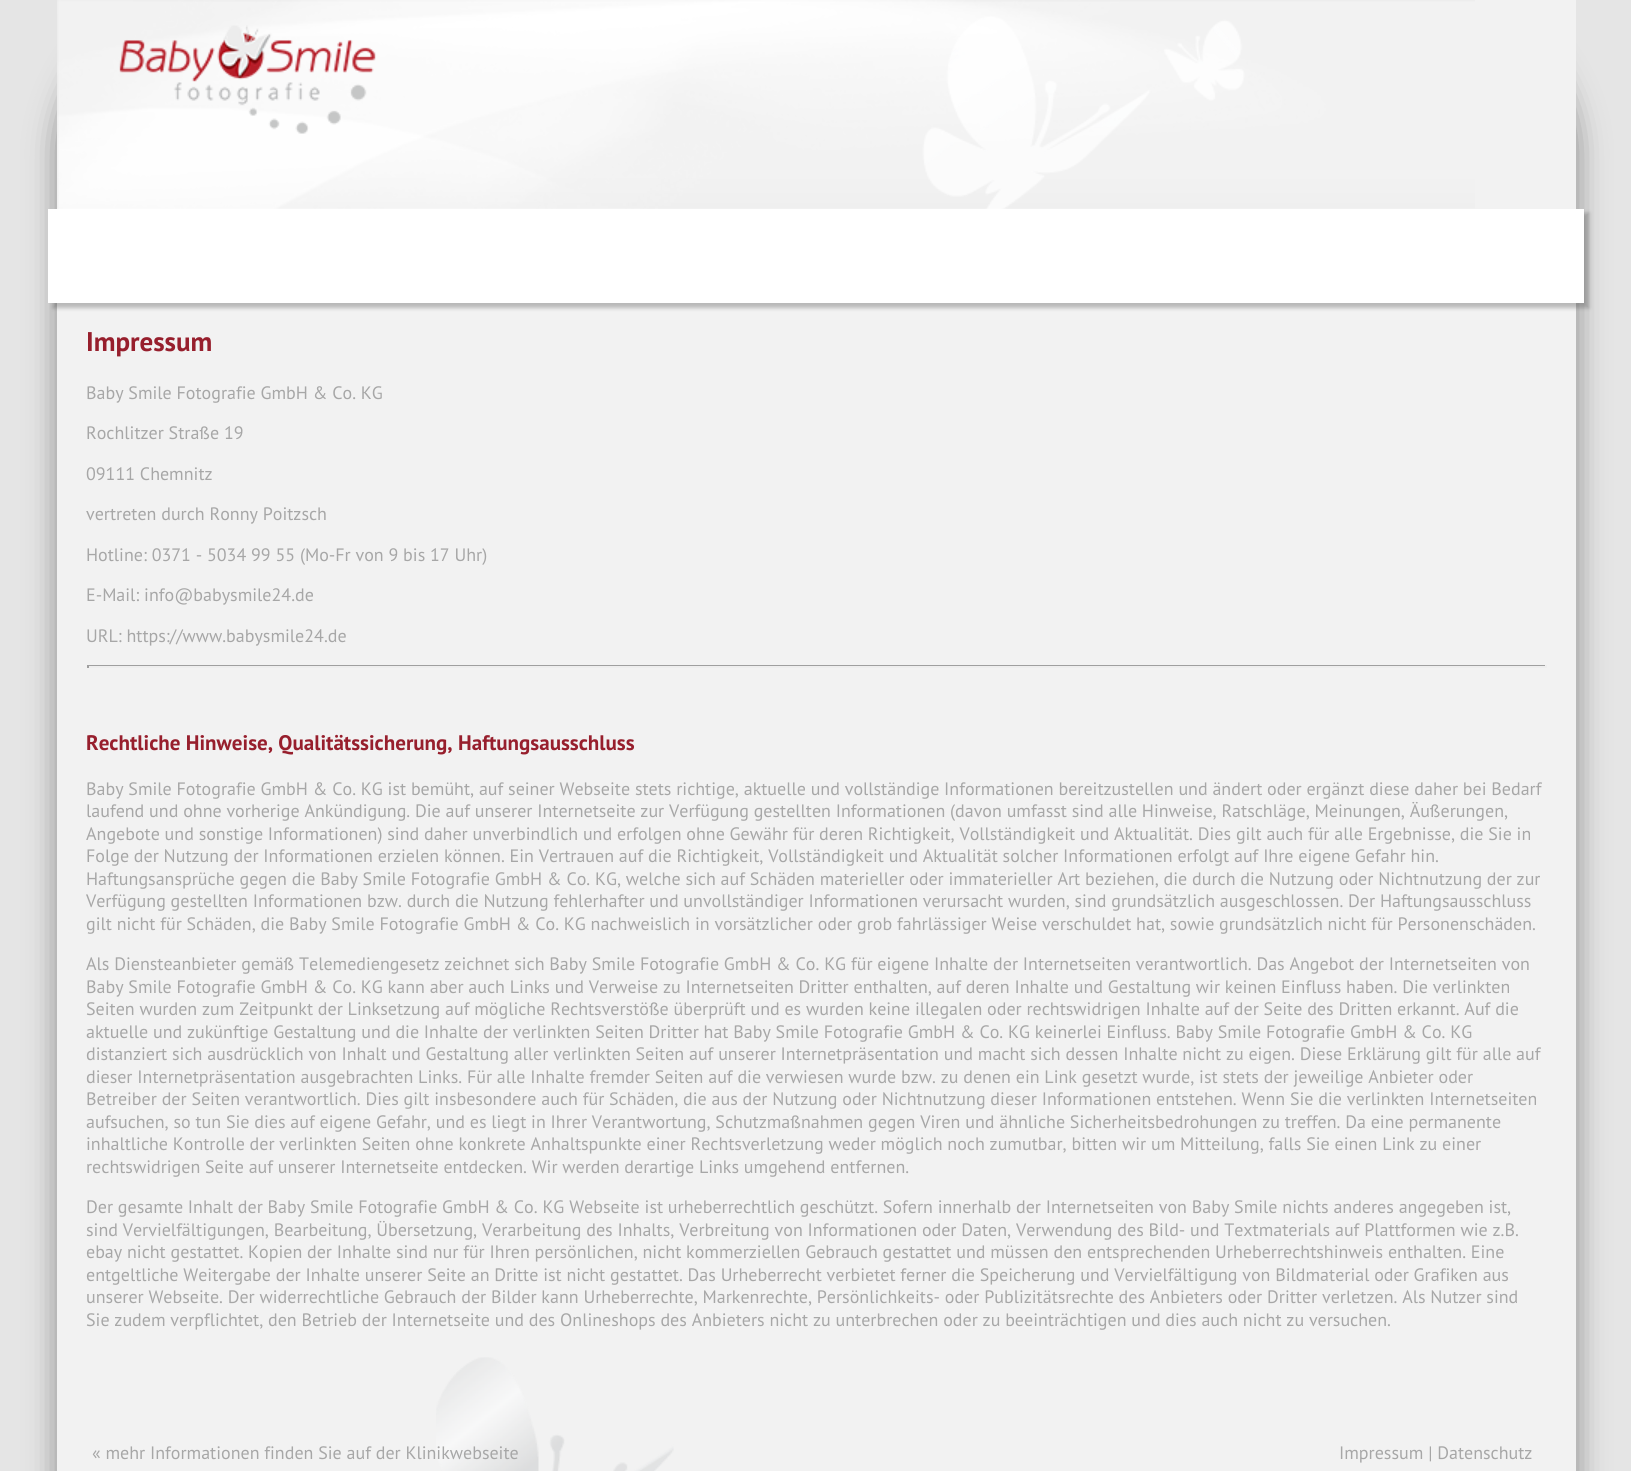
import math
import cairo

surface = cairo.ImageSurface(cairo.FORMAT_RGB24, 1631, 1471)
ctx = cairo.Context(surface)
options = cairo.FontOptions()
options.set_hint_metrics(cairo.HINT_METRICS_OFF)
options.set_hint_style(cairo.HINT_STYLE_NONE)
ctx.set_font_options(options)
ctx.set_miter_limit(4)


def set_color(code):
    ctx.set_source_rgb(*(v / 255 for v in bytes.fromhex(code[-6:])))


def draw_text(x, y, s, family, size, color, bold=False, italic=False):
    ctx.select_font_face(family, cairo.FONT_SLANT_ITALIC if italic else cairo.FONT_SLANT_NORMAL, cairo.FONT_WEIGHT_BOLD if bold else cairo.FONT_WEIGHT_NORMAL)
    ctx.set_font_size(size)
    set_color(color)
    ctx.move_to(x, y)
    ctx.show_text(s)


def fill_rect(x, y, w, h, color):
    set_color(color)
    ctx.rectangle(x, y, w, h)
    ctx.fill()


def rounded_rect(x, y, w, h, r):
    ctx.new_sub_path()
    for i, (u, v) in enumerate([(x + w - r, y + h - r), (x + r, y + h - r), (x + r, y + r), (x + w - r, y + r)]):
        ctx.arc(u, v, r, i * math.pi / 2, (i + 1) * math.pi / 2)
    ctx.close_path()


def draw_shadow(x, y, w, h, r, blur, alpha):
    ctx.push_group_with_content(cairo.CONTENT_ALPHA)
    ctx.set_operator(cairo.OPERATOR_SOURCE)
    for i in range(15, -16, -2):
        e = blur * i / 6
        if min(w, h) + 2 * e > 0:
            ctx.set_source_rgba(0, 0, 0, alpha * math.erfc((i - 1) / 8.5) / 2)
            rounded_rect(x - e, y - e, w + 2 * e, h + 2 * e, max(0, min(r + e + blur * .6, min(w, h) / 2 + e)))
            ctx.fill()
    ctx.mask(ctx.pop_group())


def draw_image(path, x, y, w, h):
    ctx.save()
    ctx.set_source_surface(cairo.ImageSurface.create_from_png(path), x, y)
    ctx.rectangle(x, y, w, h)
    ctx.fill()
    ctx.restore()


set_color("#e5e5e5")
ctx.paint()
set_color("#323232")
draw_shadow(57, 0, 1520, 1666, 150, 15, 0.5)
set_color("#f2f2f2")
ctx.new_path()
ctx.move_to(57, 0)
ctx.line_to(1576, 0)
ctx.line_to(1576, 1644)
ctx.curve_to(1576, 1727, 1236, 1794, 817, 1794)
ctx.curve_to(397, 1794, 57, 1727, 57, 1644)
ctx.close_path()
ctx.fill()
draw_image("assets/img1.png", 57, 0, 1418, 209)
set_color("#323232")
draw_shadow(53, 213, 1536, 95, 0, 2, 0.3)
fill_rect(48, 209, 1536, 94, "#ffffff")
draw_image("assets/img2.png", 119, 25, 257, 109)
draw_image("assets/img3.png", 436, 1357, 238, 114)
draw_text(86, 351, "Impressum", "PT Sans", 27, "#971f2d", bold=True)
draw_text(86, 399, "Baby Smile Fotografie GmbH & Co. KG", "PT Sans", 18, "#a7a7a7")
draw_text(86, 439, "Rochlitzer Straße 19", "PT Sans", 18, "#a7a7a7")
draw_text(86, 480, "09111 Chemnitz", "PT Sans", 18, "#a7a7a7")
draw_text(86, 520, "vertreten durch Ronny Poitzsch", "PT Sans", 18, "#a7a7a7")
draw_text(86, 561, "Hotline: 0371 - 5034 99 55 (Mo-Fr von 9 bis 17 Uhr)", "PT Sans", 18, "#a7a7a7")
draw_text(86, 601, "E-Mail: info@babysmile24.de", "PT Sans", 18, "#a7a7a7")
draw_text(86, 642, "URL: https://www.babysmile24.de", "PT Sans", 18, "#a7a7a7")
fill_rect(87, 665, 1460, 1, "#9f9f9f")
fill_rect(1545, 665, 2, 3, "#eeeeee")
fill_rect(87, 666, 1460, 2, "#eeeeee")
fill_rect(87, 665, 2, 3, "#9f9f9f")
draw_text(86, 750, "Rechtliche Hinweise, Qualitätssicherung, Haftungsausschluss", "PT Sans", 21.05, "#971f2d", bold=True)
draw_text(86, 795, "Baby Smile Fotografie GmbH & Co. KG ist bemüht, auf seiner Webseite stets richtige, aktuelle und vollständige Informationen bereitzustellen und ändert oder ergänzt diese daher bei Bedarf", "PT Sans", 18, "#a7a7a7")
draw_text(86, 817, "laufend und ohne vorherige Ankündigung. Die auf unserer Internetseite zur Verfügung gestellten Informationen (davon umfasst sind alle Hinweise, Ratschläge, Meinungen, Äußerungen,", "PT Sans", 18, "#a7a7a7")
draw_text(86, 840, "Angebote und sonstige Informationen) sind daher unverbindlich und erfolgen ohne Gewähr für deren Richtigkeit, Vollständigkeit und Aktualität. Dies gilt auch für alle Ergebnisse, die Sie in", "PT Sans", 18, "#a7a7a7")
draw_text(86, 862, "Folge der Nutzung der Informationen erzielen können. Ein Vertrauen auf die Richtigkeit, Vollständigkeit und Aktualität solcher Informationen erfolgt auf Ihre eigene Gefahr hin.", "PT Sans", 18, "#a7a7a7")
draw_text(86, 885, "Haftungsansprüche gegen die Baby Smile Fotografie GmbH & Co. KG, welche sich auf Schäden materieller oder immaterieller Art beziehen, die durch die Nutzung oder Nichtnutzung der zur", "PT Sans", 18, "#a7a7a7")
draw_text(86, 907, "Verfügung gestellten Informationen bzw. durch die Nutzung fehlerhafter und unvollständiger Informationen verursacht wurden, sind grundsätzlich ausgeschlossen. Der Haftungsausschluss", "PT Sans", 18, "#a7a7a7")
draw_text(86, 930, "gilt nicht für Schäden, die Baby Smile Fotografie GmbH & Co. KG nachweislich in vorsätzlicher oder grob fahrlässiger Weise verschuldet hat, sowie grundsätzlich nicht für Personenschäden.", "PT Sans", 18, "#a7a7a7")
draw_text(86, 970, "Als Diensteanbieter gemäß Telemediengesetz zeichnet sich Baby Smile Fotografie GmbH & Co. KG für eigene Inhalte der Internetseiten verantwortlich. Das Angebot der Internetseiten von", "PT Sans", 18, "#a7a7a7")
draw_text(86, 993, "Baby Smile Fotografie GmbH & Co. KG kann aber auch Links und Verweise zu Internetseiten Dritter enthalten, auf deren Inhalte und Gestaltung wir keinen Einfluss haben. Die verlinkten", "PT Sans", 18, "#a7a7a7")
draw_text(86, 1015, "Seiten wurden zum Zeitpunkt der Linksetzung auf mögliche Rechtsverstöße überprüft und es wurden keine illegalen oder rechtswidrigen Inhalte auf der Seite des Dritten erkannt. Auf die", "PT Sans", 18, "#a7a7a7")
draw_text(86, 1038, "aktuelle und zukünftige Gestaltung und die Inhalte der verlinkten Seiten Dritter hat Baby Smile Fotografie GmbH & Co. KG keinerlei Einfluss. Baby Smile Fotografie GmbH & Co. KG", "PT Sans", 18, "#a7a7a7")
draw_text(86, 1060, "distanziert sich ausdrücklich von Inhalt und Gestaltung aller verlinkten Seiten auf unserer Internetpräsentation und macht sich dessen Inhalte nicht zu eigen. Diese Erklärung gilt für alle auf", "PT Sans", 18, "#a7a7a7")
draw_text(86, 1083, "dieser Internetpräsentation ausgebrachten Links. Für alle Inhalte fremder Seiten auf die verwiesen wurde bzw. zu denen ein Link gesetzt wurde, ist stets der jeweilige Anbieter oder", "PT Sans", 18, "#a7a7a7")
draw_text(86, 1105, "Betreiber der Seiten verantwortlich. Dies gilt insbesondere auch für Schäden, die aus der Nutzung oder Nichtnutzung dieser Informationen entstehen. Wenn Sie die verlinkten Internetseiten", "PT Sans", 18, "#a7a7a7")
draw_text(86, 1128, "aufsuchen, so tun Sie dies auf eigene Gefahr, und es liegt in Ihrer Verantwortung, Schutzmaßnahmen gegen Viren und ähnliche Sicherheitsbedrohungen zu treffen. Da eine permanente", "PT Sans", 18, "#a7a7a7")
draw_text(86, 1150, "inhaltliche Kontrolle der verlinkten Seiten ohne konkrete Anhaltspunkte einer Rechtsverletzung weder möglich noch zumutbar, bitten wir um Mitteilung, falls Sie einen Link zu einer", "PT Sans", 18, "#a7a7a7")
draw_text(86, 1173, "rechtswidrigen Seite auf unserer Internetseite entdecken. Wir werden derartige Links umgehend entfernen.", "PT Sans", 18, "#a7a7a7")
draw_text(86, 1213, "Der gesamte Inhalt der Baby Smile Fotografie GmbH & Co. KG Webseite ist urheberrechtlich geschützt. Sofern innerhalb der Internetseiten von Baby Smile nichts anderes angegeben ist,", "PT Sans", 18, "#a7a7a7")
draw_text(86, 1236, "sind Vervielfältigungen, Bearbeitung, Übersetzung, Verarbeitung des Inhalts, Verbreitung von Informationen oder Daten, Verwendung des Bild- und Textmaterials auf Plattformen wie z.B.", "PT Sans", 18, "#a7a7a7")
draw_text(86, 1258, "ebay nicht gestattet. Kopien der Inhalte sind nur für Ihren persönlichen, nicht kommerziellen Gebrauch gestattet und müssen den entsprechenden Urheberrechtshinweis enthalten. Eine", "PT Sans", 18, "#a7a7a7")
draw_text(86, 1281, "entgeltliche Weitergabe der Inhalte unserer Seite an Dritte ist nicht gestattet. Das Urheberrecht verbietet ferner die Speicherung und Vervielfältigung von Bildmaterial oder Grafiken aus", "PT Sans", 18, "#a7a7a7")
draw_text(86, 1303, "unserer Webseite. Der widerrechtliche Gebrauch der Bilder kann Urheberrechte, Markenrechte, Persönlichkeits- oder Publizitätsrechte des Anbieters oder Dritter verletzen. Als Nutzer sind", "PT Sans", 18, "#a7a7a7")
draw_text(86, 1326, "Sie zudem verpflichtet, den Betrieb der Internetseite und des Onlineshops des Anbieters nicht zu unterbrechen oder zu beeinträchtigen und dies auch nicht zu versuchen.", "PT Sans", 18, "#a7a7a7")
draw_text(92, 1459, "« mehr Informationen finden Sie auf der Klinikwebseite", "PT Sans", 18, "#a7a7a7")
draw_text(1339, 1459, "Impressum | Datenschutz", "PT Sans", 18, "#a7a7a7")
surface.write_to_png("output.png")
